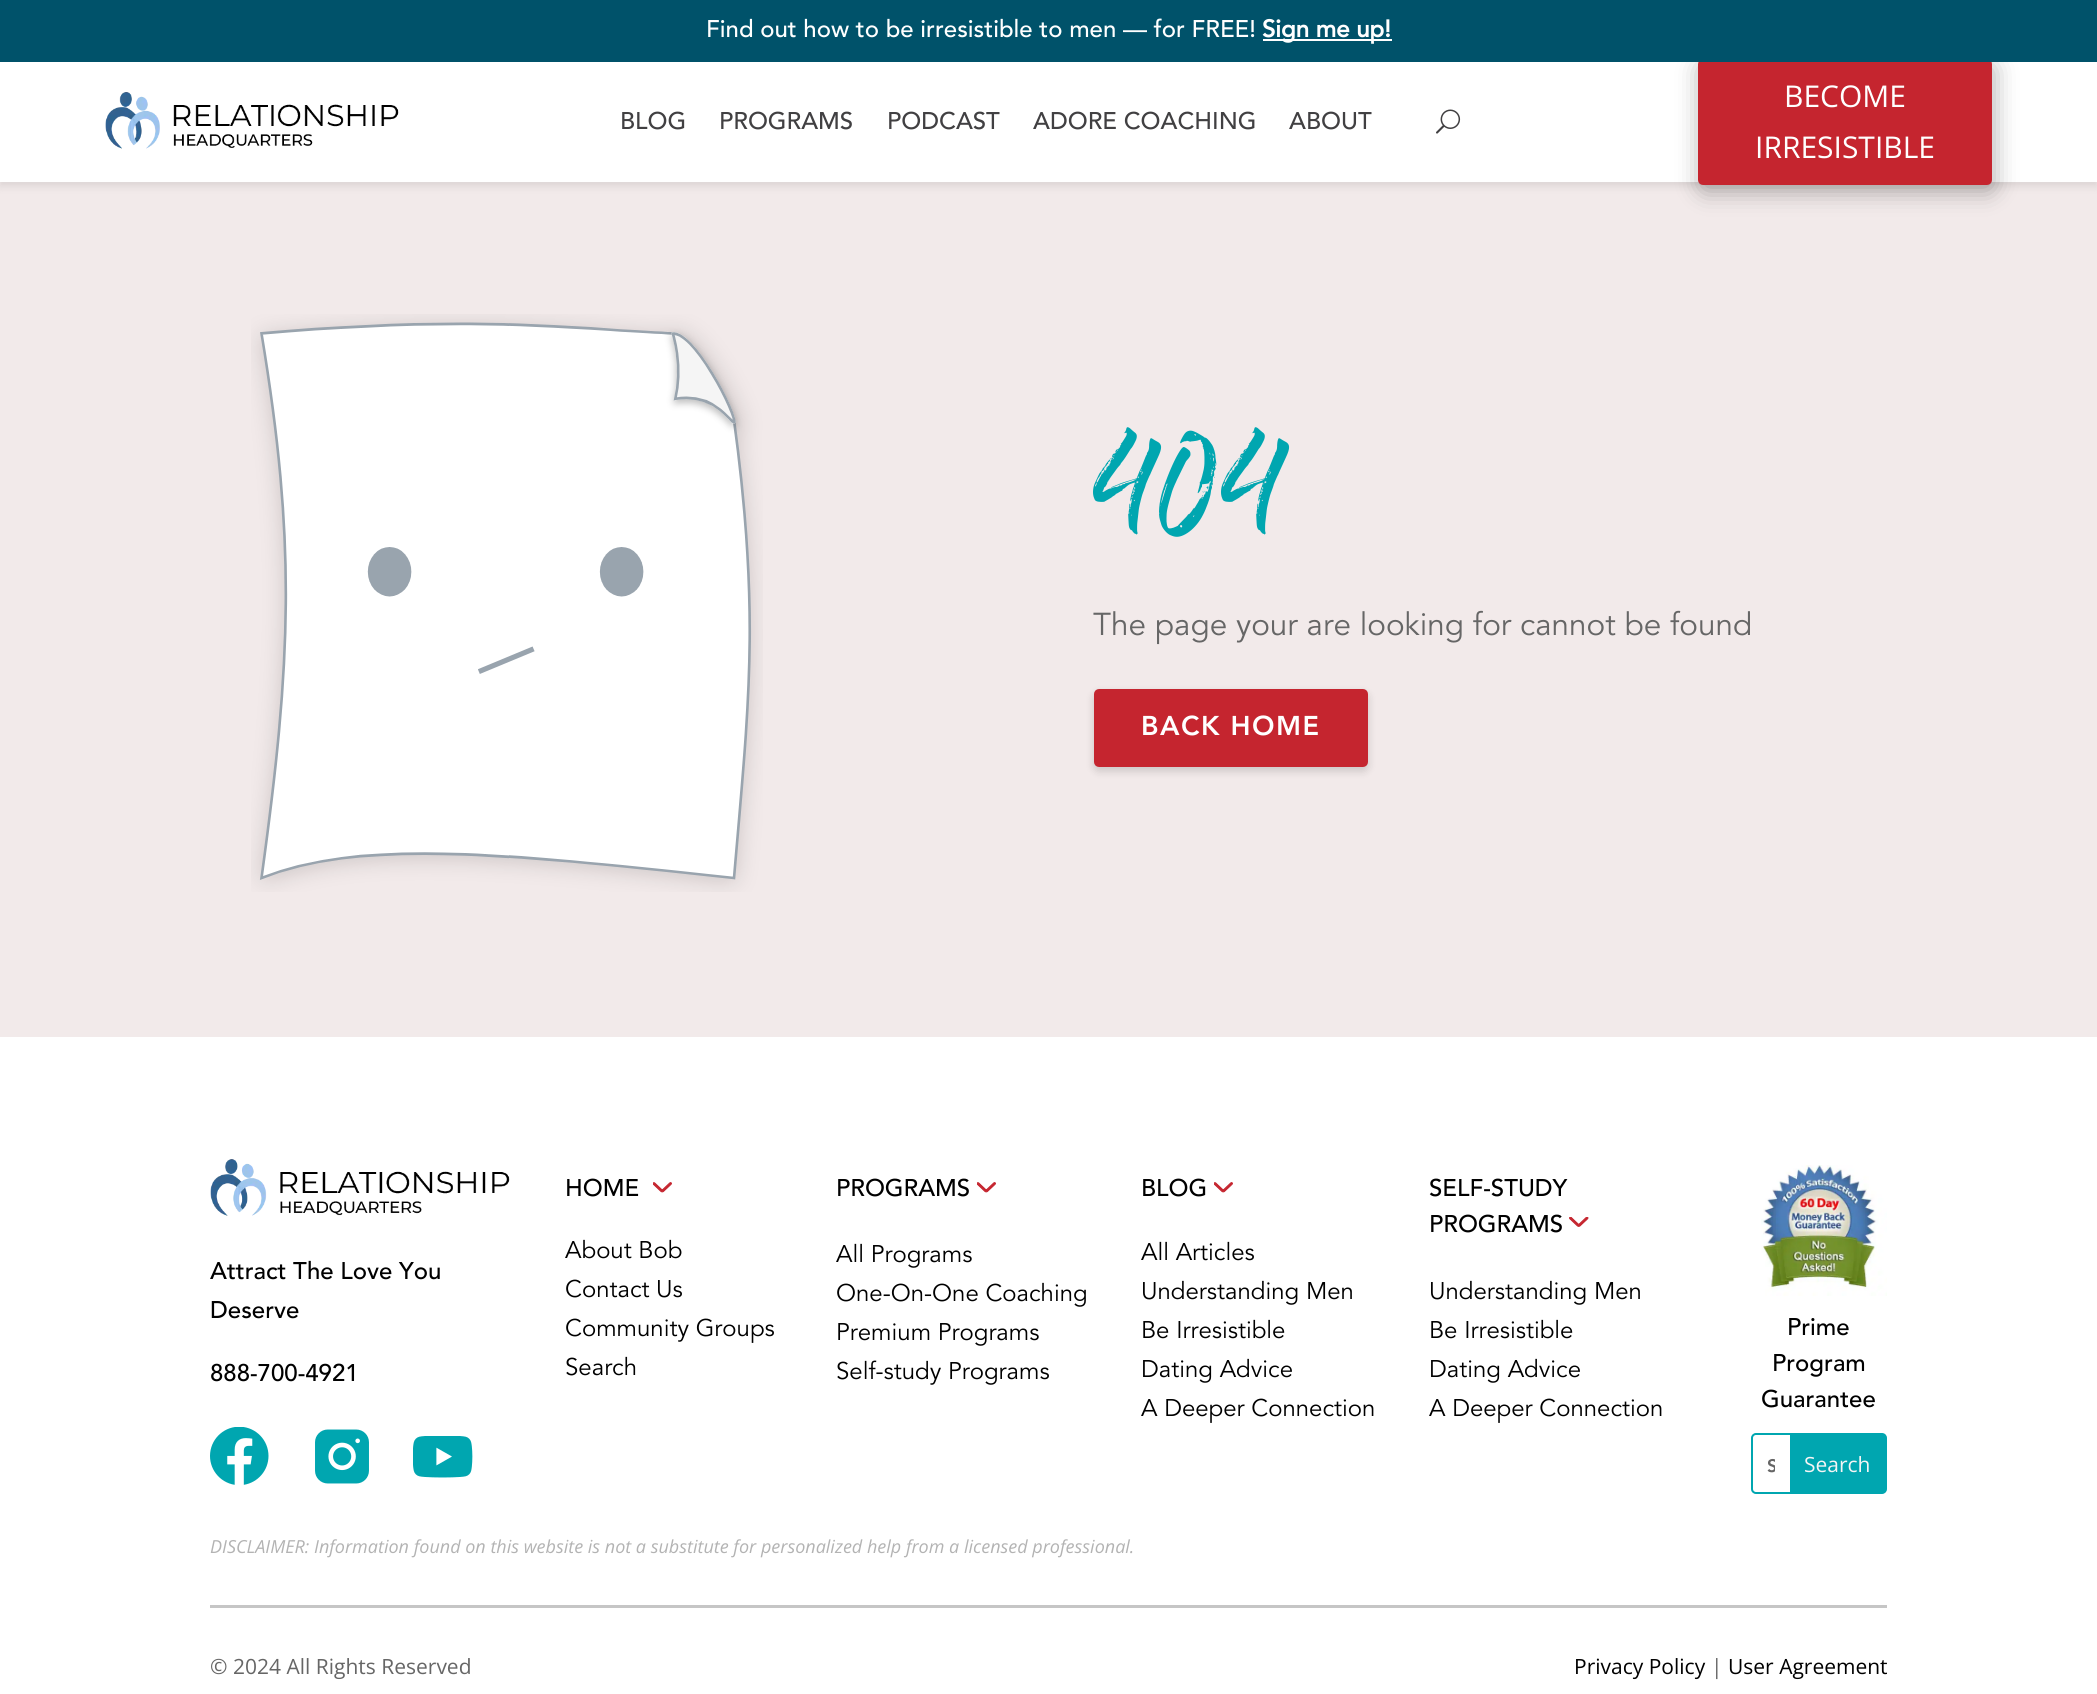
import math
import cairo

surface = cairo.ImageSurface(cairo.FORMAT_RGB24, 2097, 1694)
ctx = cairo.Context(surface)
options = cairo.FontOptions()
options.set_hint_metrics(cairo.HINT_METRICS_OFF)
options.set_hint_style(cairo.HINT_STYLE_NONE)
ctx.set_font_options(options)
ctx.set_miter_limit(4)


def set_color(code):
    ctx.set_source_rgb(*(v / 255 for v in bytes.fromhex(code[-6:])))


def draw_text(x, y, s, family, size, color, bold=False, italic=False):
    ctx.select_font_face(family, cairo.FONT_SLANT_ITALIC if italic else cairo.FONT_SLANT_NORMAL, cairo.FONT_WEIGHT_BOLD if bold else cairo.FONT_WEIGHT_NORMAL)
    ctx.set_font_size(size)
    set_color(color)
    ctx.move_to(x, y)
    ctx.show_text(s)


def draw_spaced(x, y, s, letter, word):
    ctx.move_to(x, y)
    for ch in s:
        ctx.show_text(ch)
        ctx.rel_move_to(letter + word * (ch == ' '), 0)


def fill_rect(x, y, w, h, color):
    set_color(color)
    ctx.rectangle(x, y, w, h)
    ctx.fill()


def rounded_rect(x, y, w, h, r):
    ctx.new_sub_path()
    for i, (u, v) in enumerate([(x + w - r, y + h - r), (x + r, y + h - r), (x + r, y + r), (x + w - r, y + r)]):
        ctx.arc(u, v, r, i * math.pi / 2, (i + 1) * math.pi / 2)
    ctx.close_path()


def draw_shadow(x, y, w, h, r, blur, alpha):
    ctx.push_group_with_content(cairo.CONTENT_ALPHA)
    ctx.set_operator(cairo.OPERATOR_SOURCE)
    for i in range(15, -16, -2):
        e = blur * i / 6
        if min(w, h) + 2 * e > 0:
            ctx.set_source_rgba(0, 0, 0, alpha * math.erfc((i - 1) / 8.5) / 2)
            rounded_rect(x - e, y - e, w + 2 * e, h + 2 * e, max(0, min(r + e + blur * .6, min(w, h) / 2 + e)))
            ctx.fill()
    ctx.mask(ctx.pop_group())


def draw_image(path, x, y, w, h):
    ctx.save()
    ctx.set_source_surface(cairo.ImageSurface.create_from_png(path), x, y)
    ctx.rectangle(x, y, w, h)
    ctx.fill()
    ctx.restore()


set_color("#ffffff")
ctx.paint()
fill_rect(0, 182, 2097, 855, "#f2eaea")
set_color("#000000")
draw_shadow(0, 66, 2097, 120, 0, 4.5, 0.1)
fill_rect(0, 62, 2097, 120, "#ffffff")
set_color("#000000")
draw_shadow(1700, 65, 294, 126, 5, 12, 0.31)
set_color("#c5252f")
rounded_rect(1699.5, 60.5, 291, 123, 3.5)
ctx.fill_preserve()
ctx.set_line_width(3)
ctx.stroke()
fill_rect(0, 0, 2097, 62, "#00526a")
draw_text(706, 37, "Find out how to be irresistible to men — for FREE!", "Avenir Medium", 24, "#ffffff")
fill_rect(1263, 39, 129, 2, "#ffffff")
draw_text(1262, 37, "Sign me up!", "Avenir", 24, "#ffffff", bold=True)
draw_image("assets/img1.png", 105, 92, 294, 57)
draw_text(620, 129, "BLOG", "Avenir Medium", 24, "#414042")
draw_text(719, 129, "PROGRAMS", "Avenir Medium", 24, "#414042")
draw_text(887, 129, "PODCAST", "Avenir Medium", 24, "#414042")
draw_text(1033, 129, "ADORE COACHING", "Avenir Medium", 24, "#414042")
draw_text(1289, 129, "ABOUT", "Avenir Medium", 24, "#414042")
draw_image("assets/img2.png", 1436, 109, 25, 25)
draw_text(1784, 107, "BECOME", "Open Sans", 30, "#ffffff")
draw_text(1755, 158, "IRRESISTIBLE", "Open Sans", 30, "#ffffff")
draw_image("assets/img3.png", 251, 314, 512, 578)
ctx.select_font_face("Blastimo")
ctx.set_font_size(150)
set_color("#00a6b0")
draw_spaced(1093, 537, "404", 0.5, 0)
draw_text(1093, 635, "The page your are looking for cannot be found", "Avenir", 31.5, "#666666")
set_color("#000000")
draw_shadow(1094, 693, 274, 78, 5, 4.5, 0.16)
set_color("#c5252f")
rounded_rect(1095.5, 690.5, 271, 75, 3.5)
ctx.fill_preserve()
ctx.stroke()
ctx.select_font_face("Avenir Black")
ctx.set_font_size(27)
set_color("#ffffff")
draw_spaced(1141, 735, "BACK HOME", 1.5, 0)
draw_image("assets/img4.png", 210, 1159, 300, 57)
draw_text(210, 1279, "Attract The Love You", "Avenir Medium", 24, "#000000")
draw_text(210, 1318, "Deserve", "Avenir Medium", 24, "#000000")
draw_text(210, 1381, "888-700-4921", "Avenir Medium", 24, "#000000")
draw_image("assets/img5.png", 210, 1427, 59, 58)
draw_image("assets/img6.png", 315, 1429, 54, 55)
draw_image("assets/img7.png", 413, 1436, 60, 42)
draw_text(565, 1196, "HOME", "Avenir Medium", 24, "#000000")
draw_image("assets/img8.png", 653, 1182, 19, 11)
draw_text(565, 1258, "About Bob", "Avenir", 24, "#000000")
draw_text(565, 1297, "Contact Us", "Avenir", 24, "#000000")
draw_text(565, 1336, "Community Groups", "Avenir", 24, "#000000")
draw_text(565, 1375, "Search", "Avenir", 24, "#000000")
draw_text(836, 1196, "PROGRAMS", "Avenir Medium", 24, "#000000")
draw_image("assets/img8.png", 977, 1182, 19, 11)
draw_text(836, 1262, "All Programs", "Avenir", 24, "#000000")
draw_text(836, 1301, "One-On-One Coaching", "Avenir", 24, "#000000")
draw_text(836, 1340, "Premium Programs", "Avenir", 24, "#000000")
draw_text(836, 1379, "Self-study Programs", "Avenir", 24, "#000000")
draw_text(1141, 1196, "BLOG", "Avenir Medium", 24, "#000000")
draw_image("assets/img8.png", 1214, 1182, 19, 11)
draw_text(1141, 1260, "All Articles", "Avenir", 24, "#000000")
draw_text(1141, 1299, "Understanding Men", "Avenir", 24, "#000000")
draw_text(1141, 1338, "Be Irresistible", "Avenir", 24, "#000000")
draw_text(1141, 1377, "Dating Advice", "Avenir", 24, "#000000")
draw_text(1141, 1416, "A Deeper Connection", "Avenir", 24, "#000000")
draw_text(1429, 1196, "SELF-STUDY", "Avenir Medium", 24, "#000000")
draw_text(1429, 1232, "PROGRAMS", "Avenir Medium", 24, "#000000")
draw_image("assets/img9.png", 1569, 1217, 20, 10)
draw_text(1429, 1299, "Understanding Men", "Avenir", 24, "#000000")
draw_text(1429, 1338, "Be Irresistible", "Avenir", 24, "#000000")
draw_text(1429, 1377, "Dating Advice", "Avenir", 24, "#000000")
draw_text(1429, 1416, "A Deeper Connection", "Avenir", 24, "#000000")
draw_image("assets/img10.png", 1761, 1165, 126, 131)
draw_text(1787, 1335, "Prime", "Avenir Medium", 24, "#000000")
draw_text(1772, 1371, "Program", "Avenir Medium", 24, "#000000")
draw_text(1761, 1407, "Guarantee", "Avenir Medium", 24, "#000000")
rounded_rect(1752, 1434, 134, 59, 4)
set_color("#00a6b0")
ctx.set_line_width(2)
ctx.stroke()
ctx.save()
ctx.rectangle(1767, 1452, 8, 29)
ctx.clip()
draw_text(1767, 1472, "S", "Avenir Black", 18, "#666666")
ctx.restore()
ctx.new_path()
ctx.move_to(1790, 1434)
ctx.line_to(1883, 1434)
ctx.curve_to(1884.5, 1434, 1886, 1435.5, 1886, 1437)
ctx.line_to(1886, 1490)
ctx.curve_to(1886, 1491.5, 1884.5, 1493, 1883, 1493)
ctx.line_to(1790, 1493)
ctx.close_path()
ctx.fill()
draw_text(1804, 1472, "Search", "Open Sans", 21, "#f5f5f5")
draw_text(210, 1553, "DISCLAIMER: Information found on this website is not a substitute for personalized help from a licensed professional.", "Open Sans", 18, "#b3b3b3", italic=True)
fill_rect(210, 1605, 1677, 3, "#c6c6c6")
draw_text(210, 1674, "© 2024 All Rights Reserved", "Open Sans", 21, "#666666")
draw_text(1574, 1674, "Privacy Policy", "Open Sans", 21, "#000000")
draw_text(1711, 1674, "|", "Open Sans", 21, "#666666")
draw_text(1728, 1674, "User Agreement", "Open Sans", 21, "#000000")
surface.write_to_png("output.png")
